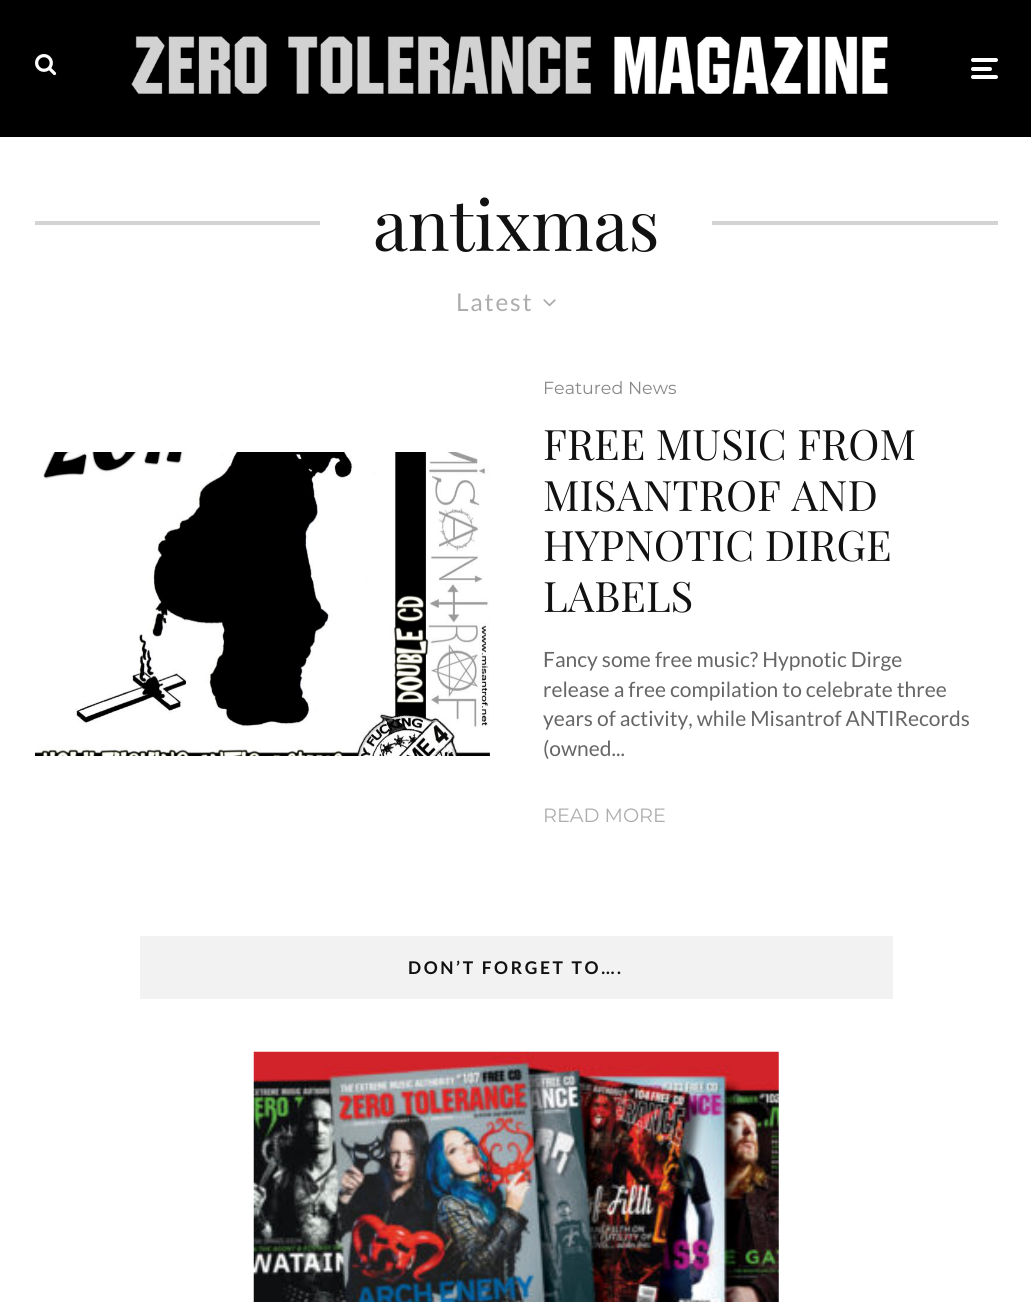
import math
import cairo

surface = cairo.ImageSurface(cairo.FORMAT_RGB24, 1031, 1302)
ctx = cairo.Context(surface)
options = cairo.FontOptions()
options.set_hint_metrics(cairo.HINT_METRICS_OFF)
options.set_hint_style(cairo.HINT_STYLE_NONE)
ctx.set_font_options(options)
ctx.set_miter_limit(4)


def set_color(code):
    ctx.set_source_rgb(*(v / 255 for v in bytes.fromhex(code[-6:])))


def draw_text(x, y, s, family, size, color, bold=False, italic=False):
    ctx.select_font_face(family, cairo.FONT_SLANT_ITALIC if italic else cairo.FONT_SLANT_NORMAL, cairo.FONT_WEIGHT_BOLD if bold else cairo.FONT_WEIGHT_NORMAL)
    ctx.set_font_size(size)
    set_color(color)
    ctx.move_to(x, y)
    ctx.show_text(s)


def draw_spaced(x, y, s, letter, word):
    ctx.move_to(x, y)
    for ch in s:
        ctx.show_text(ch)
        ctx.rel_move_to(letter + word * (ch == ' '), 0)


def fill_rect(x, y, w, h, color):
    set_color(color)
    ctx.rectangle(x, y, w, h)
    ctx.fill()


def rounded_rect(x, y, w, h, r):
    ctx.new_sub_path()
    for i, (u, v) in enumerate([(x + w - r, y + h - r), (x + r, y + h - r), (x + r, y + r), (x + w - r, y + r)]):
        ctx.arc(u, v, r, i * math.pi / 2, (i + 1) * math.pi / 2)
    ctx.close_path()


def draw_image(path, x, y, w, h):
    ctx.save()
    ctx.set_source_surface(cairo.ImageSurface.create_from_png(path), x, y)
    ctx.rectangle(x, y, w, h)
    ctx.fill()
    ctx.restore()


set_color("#ffffff")
ctx.paint()
fill_rect(0, 0, 1031, 137, "#000000")
draw_image("assets/img1.png", 35, 54, 22, 22)
draw_image("assets/img2.png", 131, 36, 757, 58)
set_color("#ffffff")
rounded_rect(971, 67, 21, 4, 2)
ctx.fill()
rounded_rect(971, 58, 27, 4, 2)
ctx.fill()
rounded_rect(971, 75, 27, 4, 2)
ctx.fill()
fill_rect(35, 221, 285, 4, "#d3d3d3")
draw_text(373, 251, "antixmas", "Playfair Display", 70, "#111111")
fill_rect(712, 221, 286, 4, "#d3d3d3")
ctx.select_font_face("Lato")
ctx.set_font_size(24.5)
set_color("#adadad")
draw_spaced(456, 311, "Latest", 1.75, 0)
draw_image("assets/img3.png", 543, 299, 13, 8)
draw_image("assets/img4.png", 35, 452, 455, 304)
draw_text(543, 394, "Featured News", "Montserrat", 17.5, "#888888")
draw_text(543, 460, "FREE MUSIC FROM", "Playfair Display", 42, "#111111")
draw_text(543, 511, "MISANTROF AND", "Playfair Display", 42, "#111111")
draw_text(543, 561, "HYPNOTIC DIRGE", "Playfair Display", 42, "#111111")
draw_text(543, 612, "LABELS", "Playfair Display", 42, "#111111")
draw_text(543, 667, "Fancy some free music? Hypnotic Dirge", "Lato", 21, "#666666")
draw_text(543, 697, "release a free compilation to celebrate three", "Lato", 21, "#666666")
draw_text(543, 726, "years of activity, while Misantrof ANTIRecords", "Lato", 21, "#666666")
draw_text(543, 756, "(owned...", "Lato", 21, "#666666")
draw_text(543, 822, "READ MORE", "Montserrat", 19.25, "#adadad")
fill_rect(140, 936, 753, 63, "#f2f2f2")
ctx.select_font_face("Lato", cairo.FONT_SLANT_NORMAL, cairo.FONT_WEIGHT_BOLD)
ctx.set_font_size(17.5)
set_color("#111111")
draw_spaced(408, 974, "DON’T FORGET TO….", 2.6, 0)
draw_image("assets/img5.png", 253, 1051, 526, 251)
surface.write_to_png("output.png")
